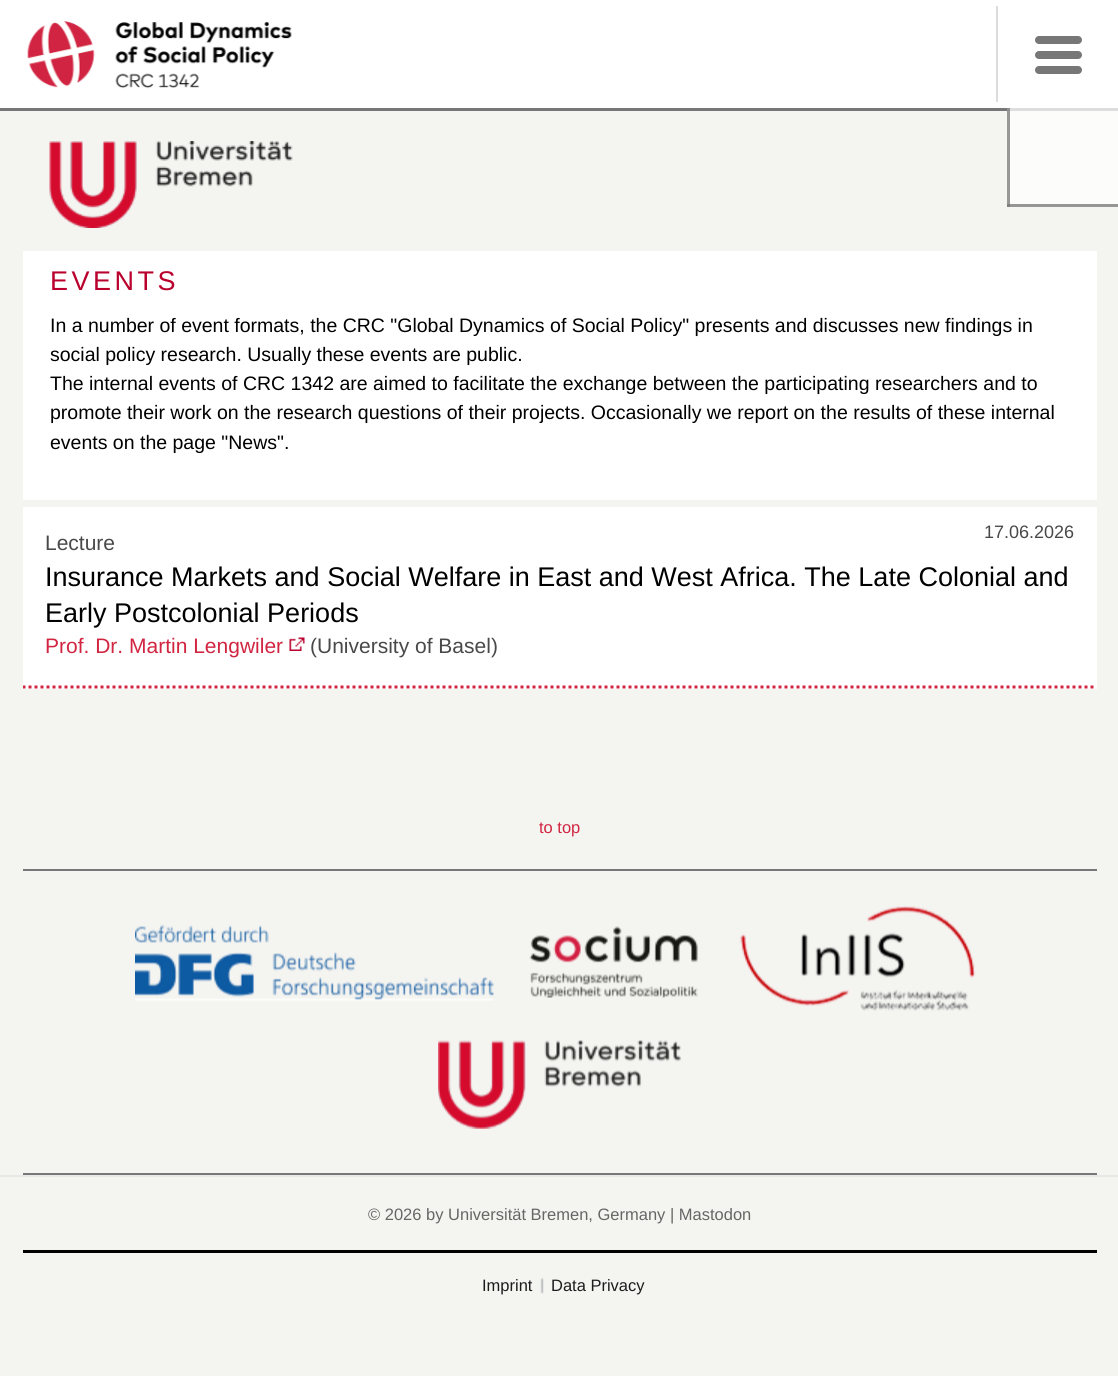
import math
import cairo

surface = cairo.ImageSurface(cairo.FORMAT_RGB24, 1118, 1376)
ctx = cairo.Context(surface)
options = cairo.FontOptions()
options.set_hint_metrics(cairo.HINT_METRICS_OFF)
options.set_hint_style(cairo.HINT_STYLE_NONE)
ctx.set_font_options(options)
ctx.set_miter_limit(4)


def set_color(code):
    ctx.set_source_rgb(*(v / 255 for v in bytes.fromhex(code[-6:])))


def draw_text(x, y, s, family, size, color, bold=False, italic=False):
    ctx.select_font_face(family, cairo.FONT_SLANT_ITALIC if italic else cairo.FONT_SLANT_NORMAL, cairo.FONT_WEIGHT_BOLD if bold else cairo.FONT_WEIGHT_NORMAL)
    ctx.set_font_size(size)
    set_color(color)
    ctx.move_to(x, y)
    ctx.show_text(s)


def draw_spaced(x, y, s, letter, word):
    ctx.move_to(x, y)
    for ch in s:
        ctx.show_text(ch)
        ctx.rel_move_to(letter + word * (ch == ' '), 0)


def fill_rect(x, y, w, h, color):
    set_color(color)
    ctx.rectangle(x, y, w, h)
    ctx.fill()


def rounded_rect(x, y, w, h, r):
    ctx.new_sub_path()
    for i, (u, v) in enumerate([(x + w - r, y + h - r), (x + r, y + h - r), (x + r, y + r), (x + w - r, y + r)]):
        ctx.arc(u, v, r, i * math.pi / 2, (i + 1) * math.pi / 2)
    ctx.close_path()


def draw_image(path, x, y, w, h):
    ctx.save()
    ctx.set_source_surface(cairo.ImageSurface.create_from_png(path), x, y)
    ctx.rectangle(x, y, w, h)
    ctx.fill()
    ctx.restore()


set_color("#f4f4f1")
ctx.paint()
fill_rect(0, 0, 1118, 108, "#ffffff")
fill_rect(0, 108, 1118, 3, "#777777")
draw_image("assets/img1.png", 27, 21, 265, 68)
fill_rect(996, 6, 2, 96, "#dcdcdc")
set_color("#777777")
rounded_rect(1035, 51, 47, 8, 4)
ctx.fill()
rounded_rect(1035, 36, 47, 8, 4)
ctx.fill()
rounded_rect(1035, 66, 47, 8, 4)
ctx.fill()
ctx.set_source_rgba(1, 1, 1, 0.75)
ctx.rectangle(1007, 108, 111, 96)
ctx.fill()
fill_rect(1007, 204, 111, 3, "#969696")
ctx.set_source_rgba(0.467, 0.467, 0.467, 0.75)
ctx.rectangle(1007, 108, 3, 99)
ctx.fill()
draw_image("assets/img2.png", 49, 141, 244, 87)
fill_rect(23, 251, 1074, 249, "#ffffff")
ctx.select_font_face("Liberation Sans")
ctx.set_font_size(27)
set_color("#ba002c")
draw_spaced(50, 290, "EVENTS", 3.5, 0)
draw_text(50, 332, "In a number of event formats, the CRC \"Global Dynamics of Social Policy\" presents and discusses new findings in", "Liberation Sans", 19.5, "#000000")
draw_text(50, 361, "social policy research. Usually these events are public.", "Liberation Sans", 19.5, "#000000")
draw_text(50, 390, "The internal events of CRC 1342 are aimed to facilitate the exchange between the participating researchers and to", "Liberation Sans", 19.5, "#000000")
draw_text(50, 419, "promote their work on the research questions of their projects. Occasionally we report on the results of these internal", "Liberation Sans", 19.5, "#000000")
draw_text(50, 449, "events on the page \"News\".", "Liberation Sans", 19.5, "#000000")
fill_rect(23, 507, 1074, 182, "#ffffff")
ctx.save()
ctx.rectangle(23, 507, 1074, 204)
ctx.clip()
ctx.new_path()
ctx.move_to(22.5, 687)
ctx.line_to(1096.5, 687)
set_color("#d12541")
ctx.set_line_width(3)
ctx.set_dash([3, 3])
ctx.stroke()
ctx.restore()
draw_text(984, 538, "17.06.2026", "Liberation Sans", 18, "#494949")
draw_text(45, 550, "Lecture", "Liberation Sans", 21, "#494949")
draw_text(45, 586, "Insurance Markets and Social Welfare in East and West Africa. The Late Colonial and", "Liberation Sans", 27, "#000000")
draw_text(45, 622, "Early Postcolonial Periods", "Liberation Sans", 27, "#000000")
draw_text(45, 653, "Prof. Dr. Martin Lengwiler", "Liberation Sans", 21, "#d12541")
draw_image("assets/img3.png", 289, 637, 16, 14)
draw_text(310, 653, "(University of Basel)", "Liberation Sans", 21, "#494949")
draw_text(539, 833, "to top", "Liberation Sans", 16.5, "#d12541")
fill_rect(23, 869, 1074, 2, "#777777")
fill_rect(23, 1173, 1074, 2, "#777777")
draw_image("assets/img4.png", 135, 924, 359, 77)
draw_image("assets/img5.png", 529, 926, 169, 72)
draw_image("assets/img6.png", 739, 906, 237, 105)
draw_image("assets/img7.png", 438, 1040, 243, 89)
fill_rect(0, 1175, 1118, 2, "#e8e8e8")
fill_rect(23, 1250, 1074, 3, "#000000")
draw_text(368, 1220, "© 2026 by Universität Bremen, Germany | Mastodon", "Liberation Sans", 16.5, "#666666")
draw_image("assets/img8.png", 540, 1278, 4, 16)
draw_text(482, 1291, "Imprint", "Liberation Sans", 16.5, "#1b1c1c")
draw_text(551, 1291, "Data Privacy", "Liberation Sans", 16.5, "#1b1c1c")
surface.write_to_png("output.png")
